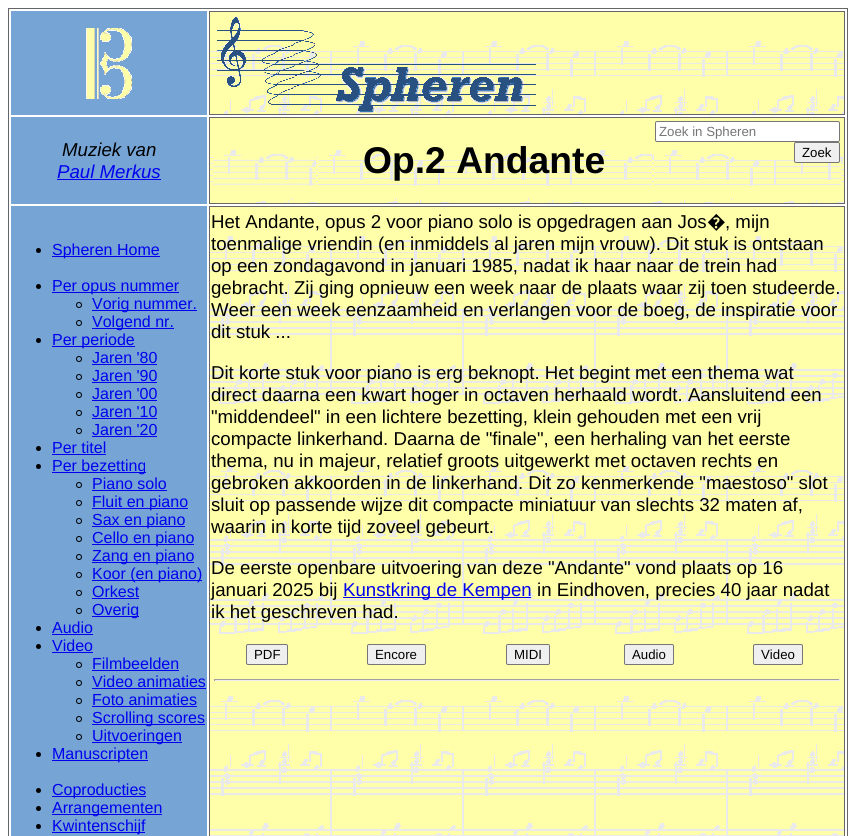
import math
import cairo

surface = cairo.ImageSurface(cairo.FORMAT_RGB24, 856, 836)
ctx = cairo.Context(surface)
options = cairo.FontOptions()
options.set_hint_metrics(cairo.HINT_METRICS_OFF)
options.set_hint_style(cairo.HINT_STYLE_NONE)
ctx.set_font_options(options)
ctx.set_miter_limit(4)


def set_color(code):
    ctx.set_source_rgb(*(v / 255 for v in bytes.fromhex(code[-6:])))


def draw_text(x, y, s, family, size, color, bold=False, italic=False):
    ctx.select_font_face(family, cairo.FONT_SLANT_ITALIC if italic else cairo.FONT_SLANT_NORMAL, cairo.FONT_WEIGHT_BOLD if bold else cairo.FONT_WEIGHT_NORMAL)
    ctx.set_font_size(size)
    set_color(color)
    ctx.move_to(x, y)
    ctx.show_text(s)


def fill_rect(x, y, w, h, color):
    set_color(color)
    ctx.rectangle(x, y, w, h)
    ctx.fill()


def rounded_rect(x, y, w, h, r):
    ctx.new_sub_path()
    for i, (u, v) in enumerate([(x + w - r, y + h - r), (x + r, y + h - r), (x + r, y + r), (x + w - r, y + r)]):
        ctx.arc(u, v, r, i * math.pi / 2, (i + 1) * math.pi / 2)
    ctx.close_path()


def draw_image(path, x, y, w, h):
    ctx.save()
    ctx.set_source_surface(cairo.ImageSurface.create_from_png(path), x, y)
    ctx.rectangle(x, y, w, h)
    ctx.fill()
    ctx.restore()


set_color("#ffffff")
ctx.paint()
ctx.rectangle(8.5, 8.5, 839, 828)
set_color("#666666")
ctx.set_line_width(1)
ctx.stroke()
fill_rect(11, 11, 196, 104, "#75a4d5")
draw_image("assets/img1.png", 86, 28, 46, 71)
draw_image("assets/img2.png", 210, 12, 634, 102)
ctx.rectangle(209.5, 11.5, 635, 103)
set_color("#666666")
ctx.stroke()
draw_image("assets/img3.png", 217, 17, 319, 96)
fill_rect(11, 117, 196, 87, "#75a4d5")
draw_text(62, 156, "Muziek van", "Liberation Sans", 18.65, "#000000", italic=True)
draw_text(57, 178, "Paul Merkus", "Liberation Sans", 18.65, "#0000ee", italic=True)
fill_rect(57, 179, 104, 1, "#0000ee")
draw_image("assets/img4.png", 210, 118, 634, 85)
ctx.rectangle(209.5, 117.5, 635, 86)
set_color("#666666")
ctx.stroke()
draw_image("assets/img5.png", 213, 147, 103, 53)
draw_image("assets/img6.png", 318, 147, 334, 53)
draw_text(363, 173, "Op.2 Andante", "Liberation Sans", 37.25, "#000000", bold=True)
draw_image("assets/img7.png", 654, 147, 187, 53)
set_color("#ffffff")
rounded_rect(655.5, 121.5, 184, 20, 1.5)
ctx.fill_preserve()
set_color("#767676")
ctx.stroke()
draw_text(659, 136, "Zoek in Spheren", "Liberation Sans", 13.25, "#757575")
set_color("#efefef")
rounded_rect(794.5, 142.5, 45, 20, 1.5)
ctx.fill_preserve()
set_color("#767676")
ctx.stroke()
draw_text(802, 157, "Zoek", "Liberation Sans", 13.25, "#000000")
fill_rect(11, 206, 196, 630, "#75a4d5")
set_color("#000000")
ctx.new_path()
ctx.arc(38.5, 250.5, 2.5, 0, 2 * math.pi)
ctx.fill()
fill_rect(52, 256, 108, 1, "#0000ee")
draw_text(52, 255, "Spheren Home", "Liberation Sans", 16, "#0000ee")
set_color("#000000")
ctx.new_path()
ctx.arc(38.5, 286.5, 2.5, 0, 2 * math.pi)
ctx.fill()
fill_rect(52, 292, 127, 1, "#0000ee")
draw_text(52, 291, "Per opus nummer", "Liberation Sans", 16, "#0000ee")
ctx.new_path()
ctx.arc(79, 305, 2.5, 0, 2 * math.pi)
set_color("#000000")
ctx.stroke()
fill_rect(92, 310, 105, 1, "#0000ee")
draw_text(92, 309, "Vorig nummer.", "Liberation Sans", 16, "#0000ee")
ctx.new_path()
ctx.arc(79, 323, 2.5, 0, 2 * math.pi)
set_color("#000000")
ctx.stroke()
fill_rect(92, 328, 82, 1, "#0000ee")
draw_text(92, 327, "Volgend nr.", "Liberation Sans", 16, "#0000ee")
set_color("#000000")
ctx.new_path()
ctx.arc(38.5, 340.5, 2.5, 0, 2 * math.pi)
ctx.fill()
fill_rect(52, 346, 83, 1, "#0000ee")
draw_text(52, 345, "Per periode", "Liberation Sans", 16, "#0000ee")
ctx.new_path()
ctx.arc(79, 359, 2.5, 0, 2 * math.pi)
set_color("#000000")
ctx.stroke()
draw_text(92, 363, "Jaren '80", "Liberation Sans", 16, "#0000ee")
fill_rect(92, 364, 65, 1, "#0000ee")
ctx.new_path()
ctx.arc(79, 377, 2.5, 0, 2 * math.pi)
set_color("#000000")
ctx.stroke()
draw_text(92, 381, "Jaren '90", "Liberation Sans", 16, "#0000ee")
fill_rect(92, 382, 65, 1, "#0000ee")
ctx.new_path()
ctx.arc(79, 395, 2.5, 0, 2 * math.pi)
set_color("#000000")
ctx.stroke()
draw_text(92, 399, "Jaren '00", "Liberation Sans", 16, "#0000ee")
fill_rect(92, 400, 65, 1, "#0000ee")
ctx.new_path()
ctx.arc(79, 413, 2.5, 0, 2 * math.pi)
set_color("#000000")
ctx.stroke()
draw_text(92, 417, "Jaren '10", "Liberation Sans", 16, "#0000ee")
fill_rect(92, 418, 65, 1, "#0000ee")
ctx.new_path()
ctx.arc(79, 431, 2.5, 0, 2 * math.pi)
set_color("#000000")
ctx.stroke()
draw_text(92, 435, "Jaren '20", "Liberation Sans", 16, "#0000ee")
fill_rect(92, 436, 65, 1, "#0000ee")
set_color("#000000")
ctx.new_path()
ctx.arc(38.5, 448.5, 2.5, 0, 2 * math.pi)
ctx.fill()
draw_text(52, 453, "Per titel", "Liberation Sans", 16, "#0000ee")
fill_rect(52, 454, 54, 1, "#0000ee")
set_color("#000000")
ctx.new_path()
ctx.arc(38.5, 466.5, 2.5, 0, 2 * math.pi)
ctx.fill()
fill_rect(52, 472, 94, 1, "#0000ee")
draw_text(52, 471, "Per bezetting", "Liberation Sans", 16, "#0000ee")
ctx.new_path()
ctx.arc(79, 485, 2.5, 0, 2 * math.pi)
set_color("#000000")
ctx.stroke()
draw_text(92, 489, "Piano solo", "Liberation Sans", 16, "#0000ee")
fill_rect(92, 490, 75, 1, "#0000ee")
ctx.new_path()
ctx.arc(79, 503, 2.5, 0, 2 * math.pi)
set_color("#000000")
ctx.stroke()
fill_rect(92, 508, 96, 1, "#0000ee")
draw_text(92, 507, "Fluit en piano", "Liberation Sans", 16, "#0000ee")
ctx.new_path()
ctx.arc(79, 521, 2.5, 0, 2 * math.pi)
set_color("#000000")
ctx.stroke()
fill_rect(92, 526, 93, 1, "#0000ee")
draw_text(92, 525, "Sax en piano", "Liberation Sans", 16, "#0000ee")
ctx.new_path()
ctx.arc(79, 539, 2.5, 0, 2 * math.pi)
set_color("#000000")
ctx.stroke()
fill_rect(92, 544, 102, 1, "#0000ee")
draw_text(92, 543, "Cello en piano", "Liberation Sans", 16, "#0000ee")
ctx.new_path()
ctx.arc(79, 557, 2.5, 0, 2 * math.pi)
set_color("#000000")
ctx.stroke()
fill_rect(92, 562, 102, 1, "#0000ee")
draw_text(92, 561, "Zang en piano", "Liberation Sans", 16, "#0000ee")
ctx.new_path()
ctx.arc(79, 575, 2.5, 0, 2 * math.pi)
set_color("#000000")
ctx.stroke()
fill_rect(92, 580, 110, 1, "#0000ee")
draw_text(92, 579, "Koor (en piano)", "Liberation Sans", 16, "#0000ee")
ctx.new_path()
ctx.arc(79, 593, 2.5, 0, 2 * math.pi)
set_color("#000000")
ctx.stroke()
draw_text(92, 597, "Orkest", "Liberation Sans", 16, "#0000ee")
fill_rect(92, 598, 47, 1, "#0000ee")
ctx.new_path()
ctx.arc(79, 611, 2.5, 0, 2 * math.pi)
set_color("#000000")
ctx.stroke()
fill_rect(92, 616, 47, 1, "#0000ee")
draw_text(92, 615, "Overig", "Liberation Sans", 16, "#0000ee")
set_color("#000000")
ctx.new_path()
ctx.arc(38.5, 628.5, 2.5, 0, 2 * math.pi)
ctx.fill()
draw_text(52, 633, "Audio", "Liberation Sans", 16, "#0000ee")
fill_rect(52, 634, 41, 1, "#0000ee")
set_color("#000000")
ctx.new_path()
ctx.arc(38.5, 646.5, 2.5, 0, 2 * math.pi)
ctx.fill()
draw_text(52, 651, "Video", "Liberation Sans", 16, "#0000ee")
fill_rect(52, 652, 41, 1, "#0000ee")
ctx.new_path()
ctx.arc(79, 665, 2.5, 0, 2 * math.pi)
set_color("#000000")
ctx.stroke()
draw_text(92, 669, "Filmbeelden", "Liberation Sans", 16, "#0000ee")
fill_rect(92, 670, 87, 1, "#0000ee")
ctx.new_path()
ctx.arc(79, 683, 2.5, 0, 2 * math.pi)
set_color("#000000")
ctx.stroke()
draw_text(92, 687, "Video animaties", "Liberation Sans", 16, "#0000ee")
fill_rect(92, 688, 114, 1, "#0000ee")
ctx.new_path()
ctx.arc(79, 701, 2.5, 0, 2 * math.pi)
set_color("#000000")
ctx.stroke()
draw_text(92, 705, "Foto animaties", "Liberation Sans", 16, "#0000ee")
fill_rect(92, 706, 105, 1, "#0000ee")
ctx.new_path()
ctx.arc(79, 719, 2.5, 0, 2 * math.pi)
set_color("#000000")
ctx.stroke()
fill_rect(92, 724, 113, 1, "#0000ee")
draw_text(92, 723, "Scrolling scores", "Liberation Sans", 16, "#0000ee")
ctx.new_path()
ctx.arc(79, 737, 2.5, 0, 2 * math.pi)
set_color("#000000")
ctx.stroke()
fill_rect(92, 742, 90, 1, "#0000ee")
draw_text(92, 741, "Uitvoeringen", "Liberation Sans", 16, "#0000ee")
set_color("#000000")
ctx.new_path()
ctx.arc(38.5, 754.5, 2.5, 0, 2 * math.pi)
ctx.fill()
fill_rect(52, 760, 96, 1, "#0000ee")
draw_text(52, 759, "Manuscripten", "Liberation Sans", 16, "#0000ee")
set_color("#000000")
ctx.new_path()
ctx.arc(38.5, 790.5, 2.5, 0, 2 * math.pi)
ctx.fill()
fill_rect(52, 796, 94, 1, "#0000ee")
draw_text(52, 795, "Coproducties", "Liberation Sans", 16, "#0000ee")
set_color("#000000")
ctx.new_path()
ctx.arc(38.5, 808.5, 2.5, 0, 2 * math.pi)
ctx.fill()
fill_rect(52, 814, 110, 1, "#0000ee")
draw_text(52, 813, "Arrangementen", "Liberation Sans", 16, "#0000ee")
set_color("#000000")
ctx.new_path()
ctx.arc(38.5, 826.5, 2.5, 0, 2 * math.pi)
ctx.fill()
fill_rect(52, 832, 93, 1, "#0000ee")
draw_text(52, 831, "Kwintenschijf", "Liberation Sans", 16, "#0000ee")
draw_image("assets/img8.png", 210, 207, 634, 629)
ctx.rectangle(209.5, 206.5, 635, 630)
set_color("#666666")
ctx.stroke()
draw_text(211, 228, "Het Andante, opus 2 voor piano solo is opgedragen aan Jos", "Liberation Sans", 18.65, "#000000")
draw_text(707, 228, "�", "Noto Sans", 18.65, "#000000")
draw_text(725, 228, ", mijn", "Liberation Sans", 18.65, "#000000")
draw_text(211, 250, "toenmalige vriendin (en inmiddels al jaren mijn vrouw). Dit stuk is ontstaan", "Liberation Sans", 18.65, "#000000")
draw_text(211, 272, "op een zondagavond in januari 1985, nadat ik haar naar de trein had", "Liberation Sans", 18.65, "#000000")
draw_text(211, 294, "gebracht. Zij ging opnieuw een week naar de plaats waar zij toen studeerde.", "Liberation Sans", 18.65, "#000000")
draw_text(211, 316, "Weer een week eenzaamheid en verlangen voor de boeg, de inspiratie voor", "Liberation Sans", 18.65, "#000000")
draw_text(211, 338, "dit stuk ...", "Liberation Sans", 18.65, "#000000")
draw_text(211, 379, "Dit korte stuk voor piano is erg beknopt. Het begint met een thema wat", "Liberation Sans", 18.65, "#000000")
draw_text(211, 401, "direct daarna een kwart hoger in octaven herhaald wordt. Aansluitend een", "Liberation Sans", 18.65, "#000000")
draw_text(211, 423, "\"middendeel\" in een lichtere bezetting, klein gehouden met een vrij", "Liberation Sans", 18.65, "#000000")
draw_text(211, 445, "compacte linkerhand. Daarna de \"finale\", een herhaling van het eerste", "Liberation Sans", 18.65, "#000000")
draw_text(211, 467, "thema, nu in majeur, relatief groots uitgewerkt met octaven rechts en", "Liberation Sans", 18.65, "#000000")
draw_text(211, 489, "gebroken akkoorden in de linkerhand. Dit zo kenmerkende \"maestoso\" slot", "Liberation Sans", 18.65, "#000000")
draw_text(211, 511, "sluit op passende wijze dit compacte miniatuur van slechts 32 maten af,", "Liberation Sans", 18.65, "#000000")
draw_text(211, 533, "waarin in korte tijd zoveel gebeurt.", "Liberation Sans", 18.65, "#000000")
draw_text(211, 574, "De eerste openbare uitvoering van deze \"Andante\" vond plaats op 16", "Liberation Sans", 18.65, "#000000")
draw_text(211, 596, "januari 2025 bij", "Liberation Sans", 18.65, "#000000")
fill_rect(343, 597, 188, 1, "#0000ee")
draw_text(343, 596, "Kunstkring de Kempen", "Liberation Sans", 18.65, "#0000ee")
draw_text(537, 596, "in Eindhoven, precies 40 jaar nadat", "Liberation Sans", 18.65, "#000000")
draw_text(211, 618, "ik het geschreven had.", "Liberation Sans", 18.65, "#000000")
set_color("#efefef")
rounded_rect(246.5, 644.5, 41, 20, 1.5)
ctx.fill_preserve()
set_color("#767676")
ctx.stroke()
draw_text(254, 659, "PDF", "Liberation Sans", 13.25, "#000000")
set_color("#efefef")
rounded_rect(367.5, 644.5, 58, 20, 1.5)
ctx.fill_preserve()
set_color("#767676")
ctx.stroke()
draw_text(375, 659, "Encore", "Liberation Sans", 13.25, "#000000")
set_color("#efefef")
rounded_rect(506.5, 644.5, 43, 20, 1.5)
ctx.fill_preserve()
set_color("#767676")
ctx.stroke()
draw_text(514, 659, "MIDI", "Liberation Sans", 13.25, "#000000")
set_color("#efefef")
rounded_rect(624.5, 644.5, 49, 20, 1.5)
ctx.fill_preserve()
set_color("#767676")
ctx.stroke()
draw_text(632, 659, "Audio", "Liberation Sans", 13.25, "#000000")
set_color("#efefef")
rounded_rect(753.5, 644.5, 49, 20, 1.5)
ctx.fill_preserve()
set_color("#767676")
ctx.stroke()
draw_text(761, 659, "Video", "Liberation Sans", 13.25, "#000000")
fill_rect(214, 679, 626, 1, "#9f9f9f")
fill_rect(839, 679, 1, 2, "#eeeeee")
fill_rect(214, 680, 626, 1, "#eeeeee")
fill_rect(214, 679, 1, 2, "#9f9f9f")
surface.write_to_png("output.png")
